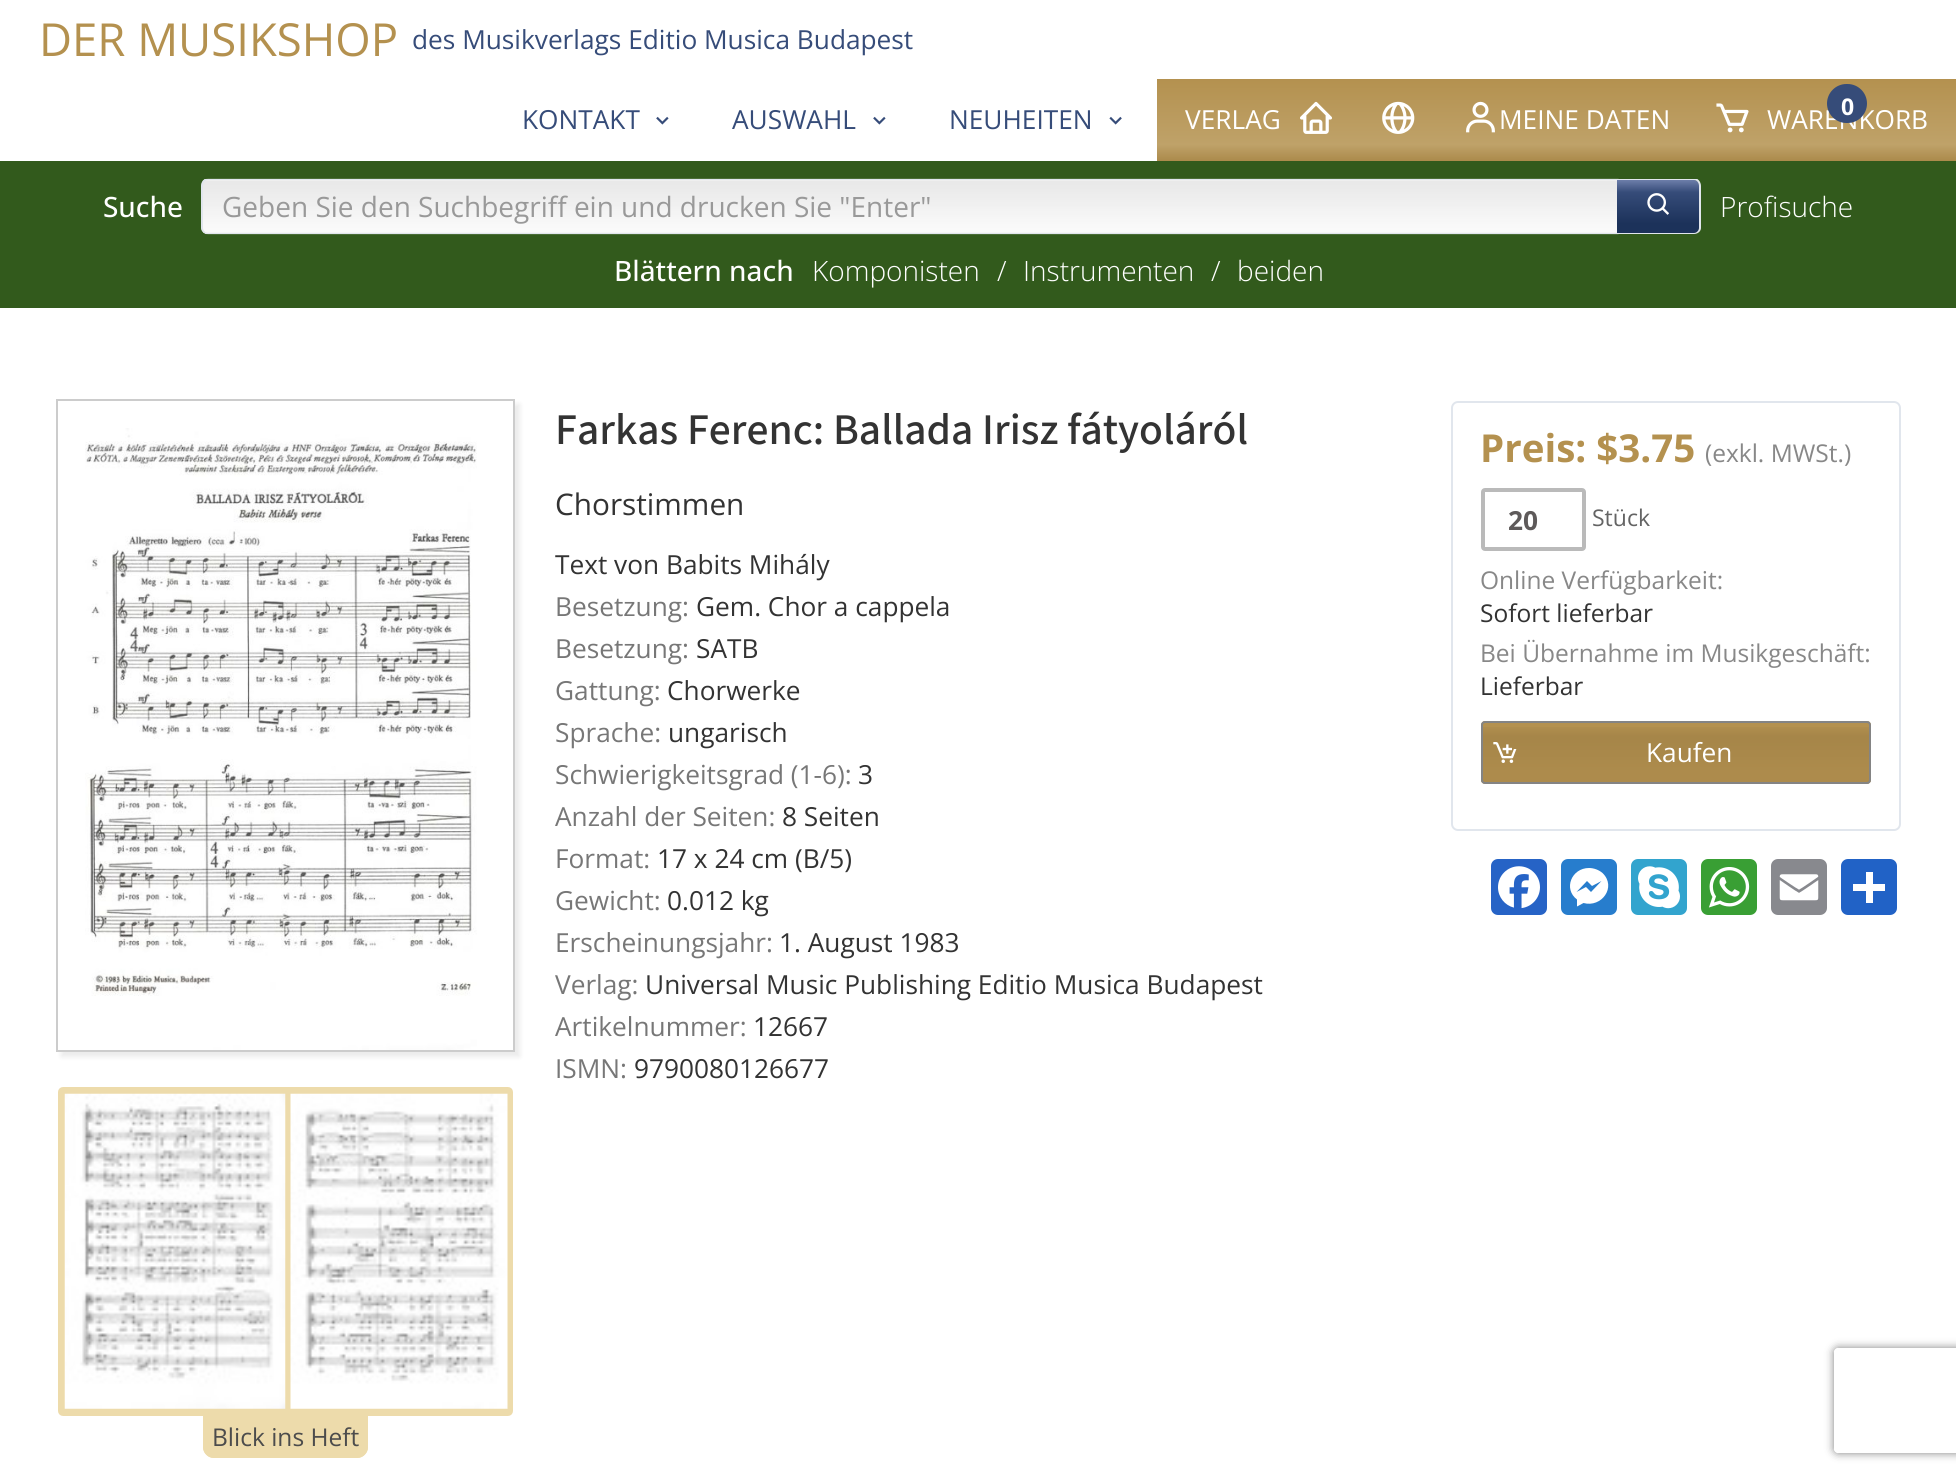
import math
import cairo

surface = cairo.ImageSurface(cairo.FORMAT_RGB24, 1956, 1476)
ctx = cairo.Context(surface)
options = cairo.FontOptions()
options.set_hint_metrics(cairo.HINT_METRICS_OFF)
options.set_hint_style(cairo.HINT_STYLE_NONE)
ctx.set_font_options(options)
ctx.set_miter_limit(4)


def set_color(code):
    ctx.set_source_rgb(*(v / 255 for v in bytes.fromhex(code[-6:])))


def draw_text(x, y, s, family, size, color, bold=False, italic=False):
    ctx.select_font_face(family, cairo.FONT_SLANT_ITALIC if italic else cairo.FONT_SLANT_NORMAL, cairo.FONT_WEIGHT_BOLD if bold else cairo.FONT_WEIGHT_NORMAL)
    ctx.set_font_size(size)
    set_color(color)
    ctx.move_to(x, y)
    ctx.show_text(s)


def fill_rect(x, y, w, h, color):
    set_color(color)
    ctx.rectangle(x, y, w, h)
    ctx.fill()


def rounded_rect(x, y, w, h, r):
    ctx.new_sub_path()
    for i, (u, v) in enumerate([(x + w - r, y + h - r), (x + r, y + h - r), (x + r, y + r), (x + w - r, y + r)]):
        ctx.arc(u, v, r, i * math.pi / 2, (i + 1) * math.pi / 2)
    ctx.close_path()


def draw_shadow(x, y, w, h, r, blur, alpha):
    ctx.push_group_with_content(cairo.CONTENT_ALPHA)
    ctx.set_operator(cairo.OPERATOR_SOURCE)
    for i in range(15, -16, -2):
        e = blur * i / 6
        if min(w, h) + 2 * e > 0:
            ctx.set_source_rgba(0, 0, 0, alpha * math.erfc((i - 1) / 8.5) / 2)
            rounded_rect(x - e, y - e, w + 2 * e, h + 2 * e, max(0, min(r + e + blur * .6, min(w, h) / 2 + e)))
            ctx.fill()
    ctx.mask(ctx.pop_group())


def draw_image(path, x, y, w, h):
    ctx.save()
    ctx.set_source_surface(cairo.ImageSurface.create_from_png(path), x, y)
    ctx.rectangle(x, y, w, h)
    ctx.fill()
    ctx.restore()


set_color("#ffffff")
ctx.paint()
draw_text(39, 56, "DER MUSIKSHOP", "Open Sans", 45.5, "#b4914f")
draw_text(412, 49, "des Musikverlags Editio Musica Budapest", "Open Sans", 26.25, "#364c79")
draw_text(522, 129, "KONTAKT", "Open Sans", 26.25, "#364c79")
draw_image("assets/img1.png", 656, 116, 13, 9)
draw_text(732, 129, "AUSWAHL", "Open Sans", 26.25, "#364c79")
draw_image("assets/img1.png", 873, 116, 13, 9)
draw_text(949, 129, "NEUHEITEN", "Open Sans", 26.25, "#364c79")
draw_image("assets/img2.png", 1109, 116, 13, 9)
gradient = cairo.LinearGradient(1557, 79, 1557, 161)
gradient.add_color_stop_rgba(0, 0.706, 0.569, 0.31, 1)
gradient.add_color_stop_rgba(0.8, 0.749, 0.635, 0.412, 1)
gradient.add_color_stop_rgba(1, 0.671, 0.541, 0.294, 1)
ctx.set_source(gradient)
ctx.rectangle(1157, 79, 799, 82)
ctx.fill()
draw_text(1185, 129, "VERLAG", "Open Sans", 26.25, "#ffffff")
draw_image("assets/img3.png", 1300, 101, 32, 33)
draw_image("assets/img4.png", 1382, 101, 33, 33)
draw_image("assets/img5.png", 1466, 101, 29, 32)
draw_text(1499, 129, "MEINE DATEN", "Open Sans", 26.25, "#ffffff")
draw_image("assets/img6.png", 1716, 103, 33, 30)
draw_text(1767, 129, "WARENKORB", "Open Sans", 26.25, "#ffffff")
set_color("#364c79")
rounded_rect(1827, 84, 40, 39, 19.5)
ctx.fill()
draw_text(1841, 115, "0", "Open Sans", 23, "#ffffff", bold=True)
fill_rect(0, 161, 1956, 147, "#325a1c")
draw_text(103, 217, "Suche", "Open Sans Medium", 28, "#ffffff")
draw_image("assets/img7.png", 201, 178, 1418, 57)
ctx.save()
ctx.rectangle(201, 179, 1500, 56)
ctx.clip()
set_color("#e1e6ed")
ctx.set_fill_rule(cairo.FILL_RULE_EVEN_ODD)
ctx.new_path()
ctx.move_to(208, 178)
ctx.line_to(1619, 178)
ctx.line_to(1619, 234)
ctx.line_to(208, 234)
ctx.curve_to(204, 234, 201, 231, 201, 228)
ctx.line_to(201, 186)
ctx.curve_to(201, 182, 204, 178, 208, 178)
ctx.close_path()
ctx.move_to(208, 180)
ctx.line_to(1619, 180)
ctx.line_to(1619, 233)
ctx.line_to(208, 233)
ctx.curve_to(205, 233, 203, 230, 203, 228)
ctx.line_to(203, 186)
ctx.curve_to(203, 183, 205, 180, 208, 180)
ctx.close_path()
ctx.fill()
ctx.restore()
draw_text(222, 217, "Geben Sie den Suchbegriff ein und drucken Sie \"Enter\"", "Open Sans", 28, "#999999")
gradient = cairo.LinearGradient(1658, 180, 1658, 233)
gradient.add_color_stop_rgba(0, 0.427, 0.494, 0.667, 1)
gradient.add_color_stop_rgba(0.23, 0.212, 0.298, 0.475, 1)
gradient.add_color_stop_rgba(0.82, 0.11, 0.196, 0.353, 1)
ctx.set_source(gradient)
ctx.new_path()
ctx.move_to(1617, 180)
ctx.line_to(1694, 180)
ctx.curve_to(1697, 180, 1699, 182, 1699, 185)
ctx.line_to(1699, 228)
ctx.curve_to(1699, 231, 1697, 233, 1694, 233)
ctx.line_to(1617, 233)
ctx.close_path()
ctx.fill()
ctx.save()
ctx.rectangle(201, 179, 1500, 56)
ctx.clip()
set_color("#e1e6ed")
ctx.set_fill_rule(cairo.FILL_RULE_EVEN_ODD)
ctx.new_path()
ctx.move_to(1617, 178)
ctx.line_to(1694, 178)
ctx.curve_to(1698, 178, 1701, 182, 1701, 186)
ctx.line_to(1701, 228)
ctx.curve_to(1701, 231, 1698, 234, 1694, 234)
ctx.line_to(1617, 234)
ctx.close_path()
ctx.move_to(1617, 180)
ctx.line_to(1694, 180)
ctx.curve_to(1697, 180, 1699, 183, 1699, 186)
ctx.line_to(1699, 228)
ctx.curve_to(1699, 230, 1697, 233, 1694, 233)
ctx.line_to(1617, 233)
ctx.close_path()
ctx.fill()
ctx.restore()
draw_image("assets/img8.png", 1647, 193, 22, 22)
draw_text(1720, 217, "Profisuche", "Open Sans Light", 28, "#ffffff")
draw_text(614, 281, "Blättern nach", "Open Sans Medium", 28, "#ffffff")
draw_text(812, 281, "Komponisten", "Open Sans Light", 28, "#ffffff")
draw_text(997, 281, "/", "Open Sans Light", 28, "#ffffff")
draw_text(1023, 281, "Instrumenten", "Open Sans Light", 28, "#ffffff")
draw_text(1211, 281, "/", "Open Sans Light", 28, "#ffffff")
draw_text(1237, 281, "beiden", "Open Sans Light", 28, "#ffffff")
draw_text(555, 444, "Farkas Ferenc: Ballada Irisz fátyoláról", "Source Sans 3 Medium", 43.75, "#333333")
draw_text(555, 515, "Chorstimmen", "Open Sans", 29.75, "#333333")
draw_text(555, 574, "Text von Babits Mihály", "Open Sans", 26.25, "#333333")
draw_text(555, 616, "Besetzung:", "Open Sans", 26.25, "#777777")
draw_text(696, 616, "Gem. Chor a cappela", "Open Sans", 26.25, "#333333")
draw_text(555, 658, "Besetzung:", "Open Sans", 26.25, "#777777")
draw_text(696, 658, "SATB", "Open Sans", 26.25, "#333333")
draw_text(555, 700, "Gattung:", "Open Sans", 26.25, "#777777")
draw_text(667, 700, "Chorwerke", "Open Sans", 26.25, "#333333")
draw_text(555, 742, "Sprache:", "Open Sans", 26.25, "#777777")
draw_text(668, 742, "ungarisch", "Open Sans", 26.25, "#333333")
draw_text(555, 784, "Schwierigkeitsgrad (1-6):", "Open Sans", 26.25, "#777777")
draw_text(858, 784, "3", "Open Sans", 26.25, "#333333")
draw_text(555, 826, "Anzahl der Seiten:", "Open Sans", 26.25, "#777777")
draw_text(782, 826, "8 Seiten", "Open Sans", 26.25, "#333333")
draw_text(555, 868, "Format:", "Open Sans", 26.25, "#777777")
draw_text(657, 868, "17 x 24 cm (B/5)", "Open Sans", 26.25, "#333333")
draw_text(555, 910, "Gewicht:", "Open Sans", 26.25, "#777777")
draw_text(667, 910, "0.012 kg", "Open Sans", 26.25, "#333333")
draw_text(555, 952, "Erscheinungsjahr:", "Open Sans", 26.25, "#777777")
draw_text(779, 952, "1. August 1983", "Open Sans", 26.25, "#333333")
draw_text(555, 994, "Verlag:", "Open Sans", 26.25, "#777777")
draw_text(645, 994, "Universal Music Publishing Editio Musica Budapest", "Open Sans", 26.25, "#333333")
draw_text(555, 1036, "Artikelnummer:", "Open Sans", 26.25, "#777777")
draw_text(753, 1036, "12667", "Open Sans", 26.25, "#333333")
draw_text(555, 1078, "ISMN:", "Open Sans", 26.25, "#777777")
draw_text(634, 1078, "9790080126677", "Open Sans", 26.25, "#333333")
rounded_rect(1452, 402, 448, 428, 6)
set_color("#e1e6ed")
ctx.stroke()
draw_text(1480, 462, "Preis: $3.75", "Open Sans", 38.5, "#b4914f", bold=True)
draw_text(1705, 462, "(exkl. MWSt.)", "Open Sans", 24.5, "#888888")
rounded_rect(1483, 490, 101, 59, 2)
set_color("#bababa")
ctx.set_line_width(4)
ctx.stroke()
draw_text(1508, 530, "20", "Open Sans", 26.25, "#5e5a5a", bold=True)
draw_text(1592, 526, "Stück", "Open Sans", 23, "#646464")
draw_text(1480, 589, "Online Verfügbarkeit:", "Open Sans", 24.5, "#888888")
draw_text(1480, 622, "Sofort lieferbar", "Open Sans", 24.5, "#333333")
draw_text(1480, 662, "Bei Übernahme im Musikgeschäft:", "Open Sans", 24.5, "#888888")
draw_text(1480, 695, "Lieferbar", "Open Sans", 24.5, "#333333")
set_color("#b4914f")
rounded_rect(1481, 721, 390, 63, 4)
ctx.fill()
gradient = cairo.LinearGradient(1676, 723, 1676, 782)
gradient.add_color_stop_rgba(0, 0, 0, 0, 0)
gradient.add_color_stop_rgba(0.23, 0, 0, 0, 0.08)
gradient.add_color_stop_rgba(0.82, 0, 0, 0, 0.04)
ctx.set_source(gradient)
ctx.rectangle(1481, 727, 390, 55)
ctx.fill()
rounded_rect(1482, 722, 388, 61, 3)
set_color("#848484")
ctx.set_line_width(2)
ctx.stroke()
draw_image("assets/img9.png", 1493, 742, 24, 21)
draw_text(1646, 762, "Kaufen", "Open Sans", 26.25, "#ffffff")
set_color("#2663c6")
rounded_rect(1491, 859, 56, 56, 7)
ctx.fill()
draw_image("assets/img10.png", 1498, 866, 42, 43)
set_color("#277dcd")
rounded_rect(1561, 859, 56, 56, 7)
ctx.fill()
set_color("#ffffff")
ctx.new_path()
ctx.move_to(1589, 868)
ctx.curve_to(1571.5, 868, 1563, 889, 1577, 899.5)
ctx.line_to(1577, 906.5)
ctx.line_to(1583.5, 903)
ctx.curve_to(1601.5, 908, 1617, 887, 1602.5, 873)
ctx.curve_to(1599, 870, 1594, 868, 1589, 868)
ctx.move_to(1591, 892)
ctx.line_to(1586, 887)
ctx.line_to(1576.5, 892)
ctx.line_to(1587, 881)
ctx.line_to(1592, 886)
ctx.line_to(1601.5, 881)
ctx.close_path()
ctx.fill()
set_color("#32a4ce")
rounded_rect(1631, 859, 56, 56, 7)
ctx.fill()
draw_image("assets/img11.png", 1638, 866, 42, 43)
set_color("#399f34")
rounded_rect(1701, 859, 56, 56, 7)
ctx.fill()
draw_image("assets/img12.png", 1708, 867, 42, 41)
set_color("#88898e")
rounded_rect(1771, 859, 56, 56, 7)
ctx.fill()
draw_image("assets/img13.png", 1779, 874, 40, 27)
set_color("#2162c6")
rounded_rect(1841, 859, 56, 56, 7)
ctx.fill()
fill_rect(1866, 872, 7, 31, "#ffffff")
fill_rect(1853, 884, 32, 7, "#ffffff")
ctx.save()
ctx.set_fill_rule(cairo.FILL_RULE_EVEN_ODD)
ctx.new_path()
ctx.move_to(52, 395)
ctx.line_to(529, 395)
ctx.line_to(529, 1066)
ctx.line_to(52, 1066)
ctx.close_path()
ctx.move_to(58, 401)
ctx.line_to(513, 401)
ctx.line_to(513, 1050)
ctx.line_to(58, 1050)
ctx.close_path()
ctx.clip()
set_color("#000000")
draw_shadow(61, 404, 459, 653, 0, 2.5, 0.08)
ctx.restore()
draw_image("assets/img14.png", 85, 428, 392, 622)
ctx.rectangle(57, 400, 457, 651)
set_color("#cccccc")
ctx.stroke()
set_color("#eddbab")
rounded_rect(60.5, 1089.5, 450, 324, 2.5)
ctx.fill_preserve()
ctx.set_line_width(5)
ctx.stroke()
draw_image("assets/img15.png", 64, 1093, 222, 316)
draw_image("assets/img16.png", 290, 1093, 218, 316)
ctx.new_path()
ctx.move_to(203, 1416)
ctx.line_to(368, 1416)
ctx.line_to(368, 1447)
ctx.curve_to(368, 1453, 363, 1458, 357, 1458)
ctx.line_to(214, 1458)
ctx.curve_to(208, 1458, 203, 1453, 203, 1447)
ctx.close_path()
ctx.fill()
ctx.set_fill_rule(cairo.FILL_RULE_EVEN_ODD)
ctx.new_path()
ctx.move_to(203, 1416)
ctx.line_to(368, 1416)
ctx.line_to(368, 1447)
ctx.curve_to(368, 1453, 363, 1458, 357, 1458)
ctx.line_to(214, 1458)
ctx.curve_to(208, 1458, 203, 1453, 203, 1447)
ctx.close_path()
ctx.move_to(205, 1416)
ctx.line_to(366, 1416)
ctx.line_to(366, 1447)
ctx.curve_to(366, 1452, 362, 1456, 357, 1456)
ctx.line_to(214, 1456)
ctx.curve_to(209, 1456, 205, 1452, 205, 1447)
ctx.close_path()
ctx.fill()
draw_text(212, 1446, "Blick ins Heft", "Open Sans", 24.5, "#4c4c4c")
ctx.save()
ctx.new_path()
ctx.move_to(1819, 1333)
ctx.line_to(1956, 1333)
ctx.line_to(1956, 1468)
ctx.line_to(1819, 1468)
ctx.close_path()
ctx.move_to(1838, 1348)
ctx.line_to(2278, 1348)
ctx.curve_to(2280, 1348, 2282, 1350, 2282, 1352)
ctx.line_to(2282, 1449)
ctx.curve_to(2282, 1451, 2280, 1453, 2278, 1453)
ctx.line_to(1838, 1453)
ctx.curve_to(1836, 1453, 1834, 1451, 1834, 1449)
ctx.line_to(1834, 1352)
ctx.curve_to(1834, 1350, 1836, 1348, 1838, 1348)
ctx.close_path()
ctx.clip()
set_color("#808080")
draw_shadow(1834, 1348, 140, 105, 4, 4.5, 1)
ctx.restore()
surface.write_to_png("output.png")
